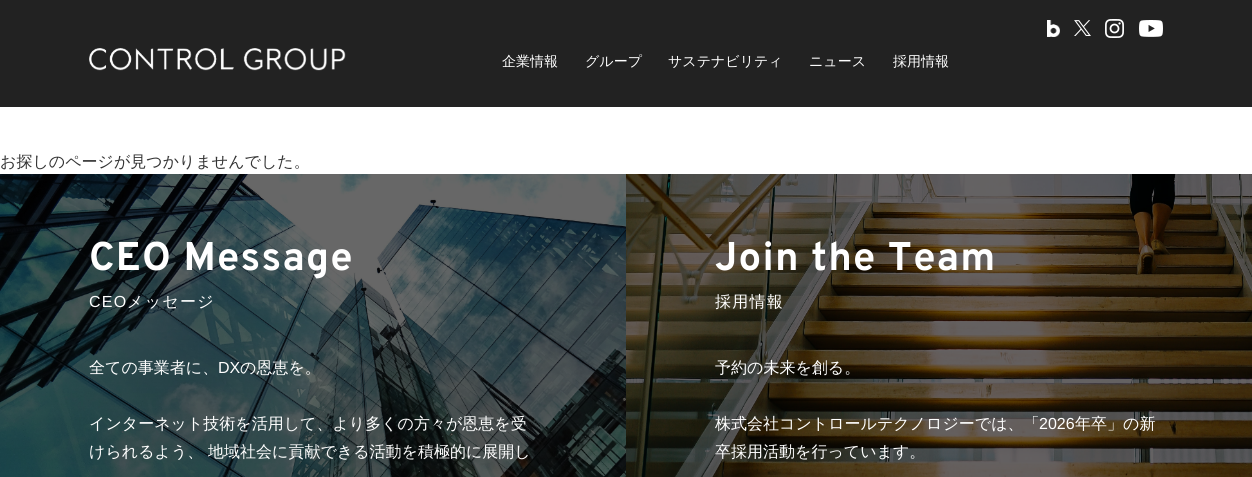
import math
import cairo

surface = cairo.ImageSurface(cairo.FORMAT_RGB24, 1252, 477)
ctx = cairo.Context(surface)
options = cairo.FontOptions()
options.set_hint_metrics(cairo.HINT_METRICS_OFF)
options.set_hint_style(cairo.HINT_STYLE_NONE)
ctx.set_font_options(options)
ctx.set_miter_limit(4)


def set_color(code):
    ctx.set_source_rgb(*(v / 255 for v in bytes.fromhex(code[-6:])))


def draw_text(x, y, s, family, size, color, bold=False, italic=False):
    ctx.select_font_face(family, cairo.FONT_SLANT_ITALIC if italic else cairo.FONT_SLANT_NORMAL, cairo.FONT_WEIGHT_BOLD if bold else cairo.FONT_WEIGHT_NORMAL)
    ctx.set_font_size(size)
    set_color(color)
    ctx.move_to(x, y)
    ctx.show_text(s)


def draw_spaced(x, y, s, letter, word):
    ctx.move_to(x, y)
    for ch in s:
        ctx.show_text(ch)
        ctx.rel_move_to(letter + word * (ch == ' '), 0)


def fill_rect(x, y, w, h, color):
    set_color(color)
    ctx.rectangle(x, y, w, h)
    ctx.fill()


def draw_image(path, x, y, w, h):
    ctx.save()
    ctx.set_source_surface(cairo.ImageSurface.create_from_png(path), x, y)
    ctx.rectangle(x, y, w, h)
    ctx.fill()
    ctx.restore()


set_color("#ffffff")
ctx.paint()
fill_rect(0, 0, 1252, 107, "#222222")
draw_image("assets/img1.png", 1047, 20, 13, 17)
draw_image("assets/img2.png", 1074, 20, 17, 16)
draw_image("assets/img3.png", 1105, 19, 19, 19)
draw_image("assets/img4.png", 1139, 20, 24, 17)
draw_image("assets/img5.png", 89, 48, 257, 23)
draw_text(502, 66, "企業情報", "WenQuanYi Zen Hei Medium", 14, "#ffffff")
draw_text(585, 66, "グループ", "WenQuanYi Zen Hei Medium", 14, "#ffffff")
draw_text(668, 66, "サステナビリティ", "WenQuanYi Zen Hei Medium", 14, "#ffffff")
draw_text(809, 66, "ニュース", "WenQuanYi Zen Hei Medium", 14, "#ffffff")
draw_text(893, 66, "採用情報", "WenQuanYi Zen Hei Medium", 14, "#ffffff")
draw_text(0, 167, "お探しのページが見つかりませんでした。", "WenQuanYi Zen Hei Medium", 16, "#333333")
draw_image("assets/img6.png", 0, 174, 626, 303)
ctx.select_font_face("Overpass", cairo.FONT_SLANT_NORMAL, cairo.FONT_WEIGHT_BOLD)
ctx.set_font_size(40)
set_color("#ffffff")
draw_spaced(89, 270, "CEO Message", 1.25, 0)
ctx.select_font_face("Liberation Sans")
ctx.set_font_size(16)
draw_spaced(89, 307, "CEO", 1.25, 0)
ctx.select_font_face("WenQuanYi Zen Hei Medium")
draw_spaced(127, 307, "メッセージ", 1.25, 0)
draw_text(89, 373, "全ての事業者に、", "WenQuanYi Zen Hei Medium", 16, "#ffffff")
draw_text(218, 373, "DX", "Liberation Sans", 16, "#ffffff")
draw_text(240, 373, "の恩恵を。", "WenQuanYi Zen Hei Medium", 16, "#ffffff")
draw_text(89, 429, "インターネット技術を活用して、より多くの方々が恩恵を受", "WenQuanYi Zen Hei Medium", 16, "#ffffff")
draw_text(89, 457, "けられるよう、 地域社会に貢献できる活動を積極的に展開し", "WenQuanYi Zen Hei Medium", 16, "#ffffff")
draw_image("assets/img7.png", 626, 174, 626, 303)
ctx.select_font_face("Overpass", cairo.FONT_SLANT_NORMAL, cairo.FONT_WEIGHT_BOLD)
ctx.set_font_size(40)
draw_spaced(715, 270, "Join the Team", 1.25, 0)
ctx.select_font_face("WenQuanYi Zen Hei Medium")
ctx.set_font_size(16)
draw_spaced(715, 307, "採用情報", 1.25, 0)
draw_text(715, 373, "予約の未来を創る。", "WenQuanYi Zen Hei Medium", 16, "#ffffff")
draw_text(715, 429, "株式会社コントロールテクノロジーでは、「", "WenQuanYi Zen Hei Medium", 16, "#ffffff")
draw_text(1039, 429, "2026", "Liberation Sans", 16, "#ffffff")
draw_text(1075, 429, "年卒」の新", "WenQuanYi Zen Hei Medium", 16, "#ffffff")
draw_text(715, 457, "卒採用活動を行っています。", "WenQuanYi Zen Hei Medium", 16, "#ffffff")
surface.write_to_png("output.png")
